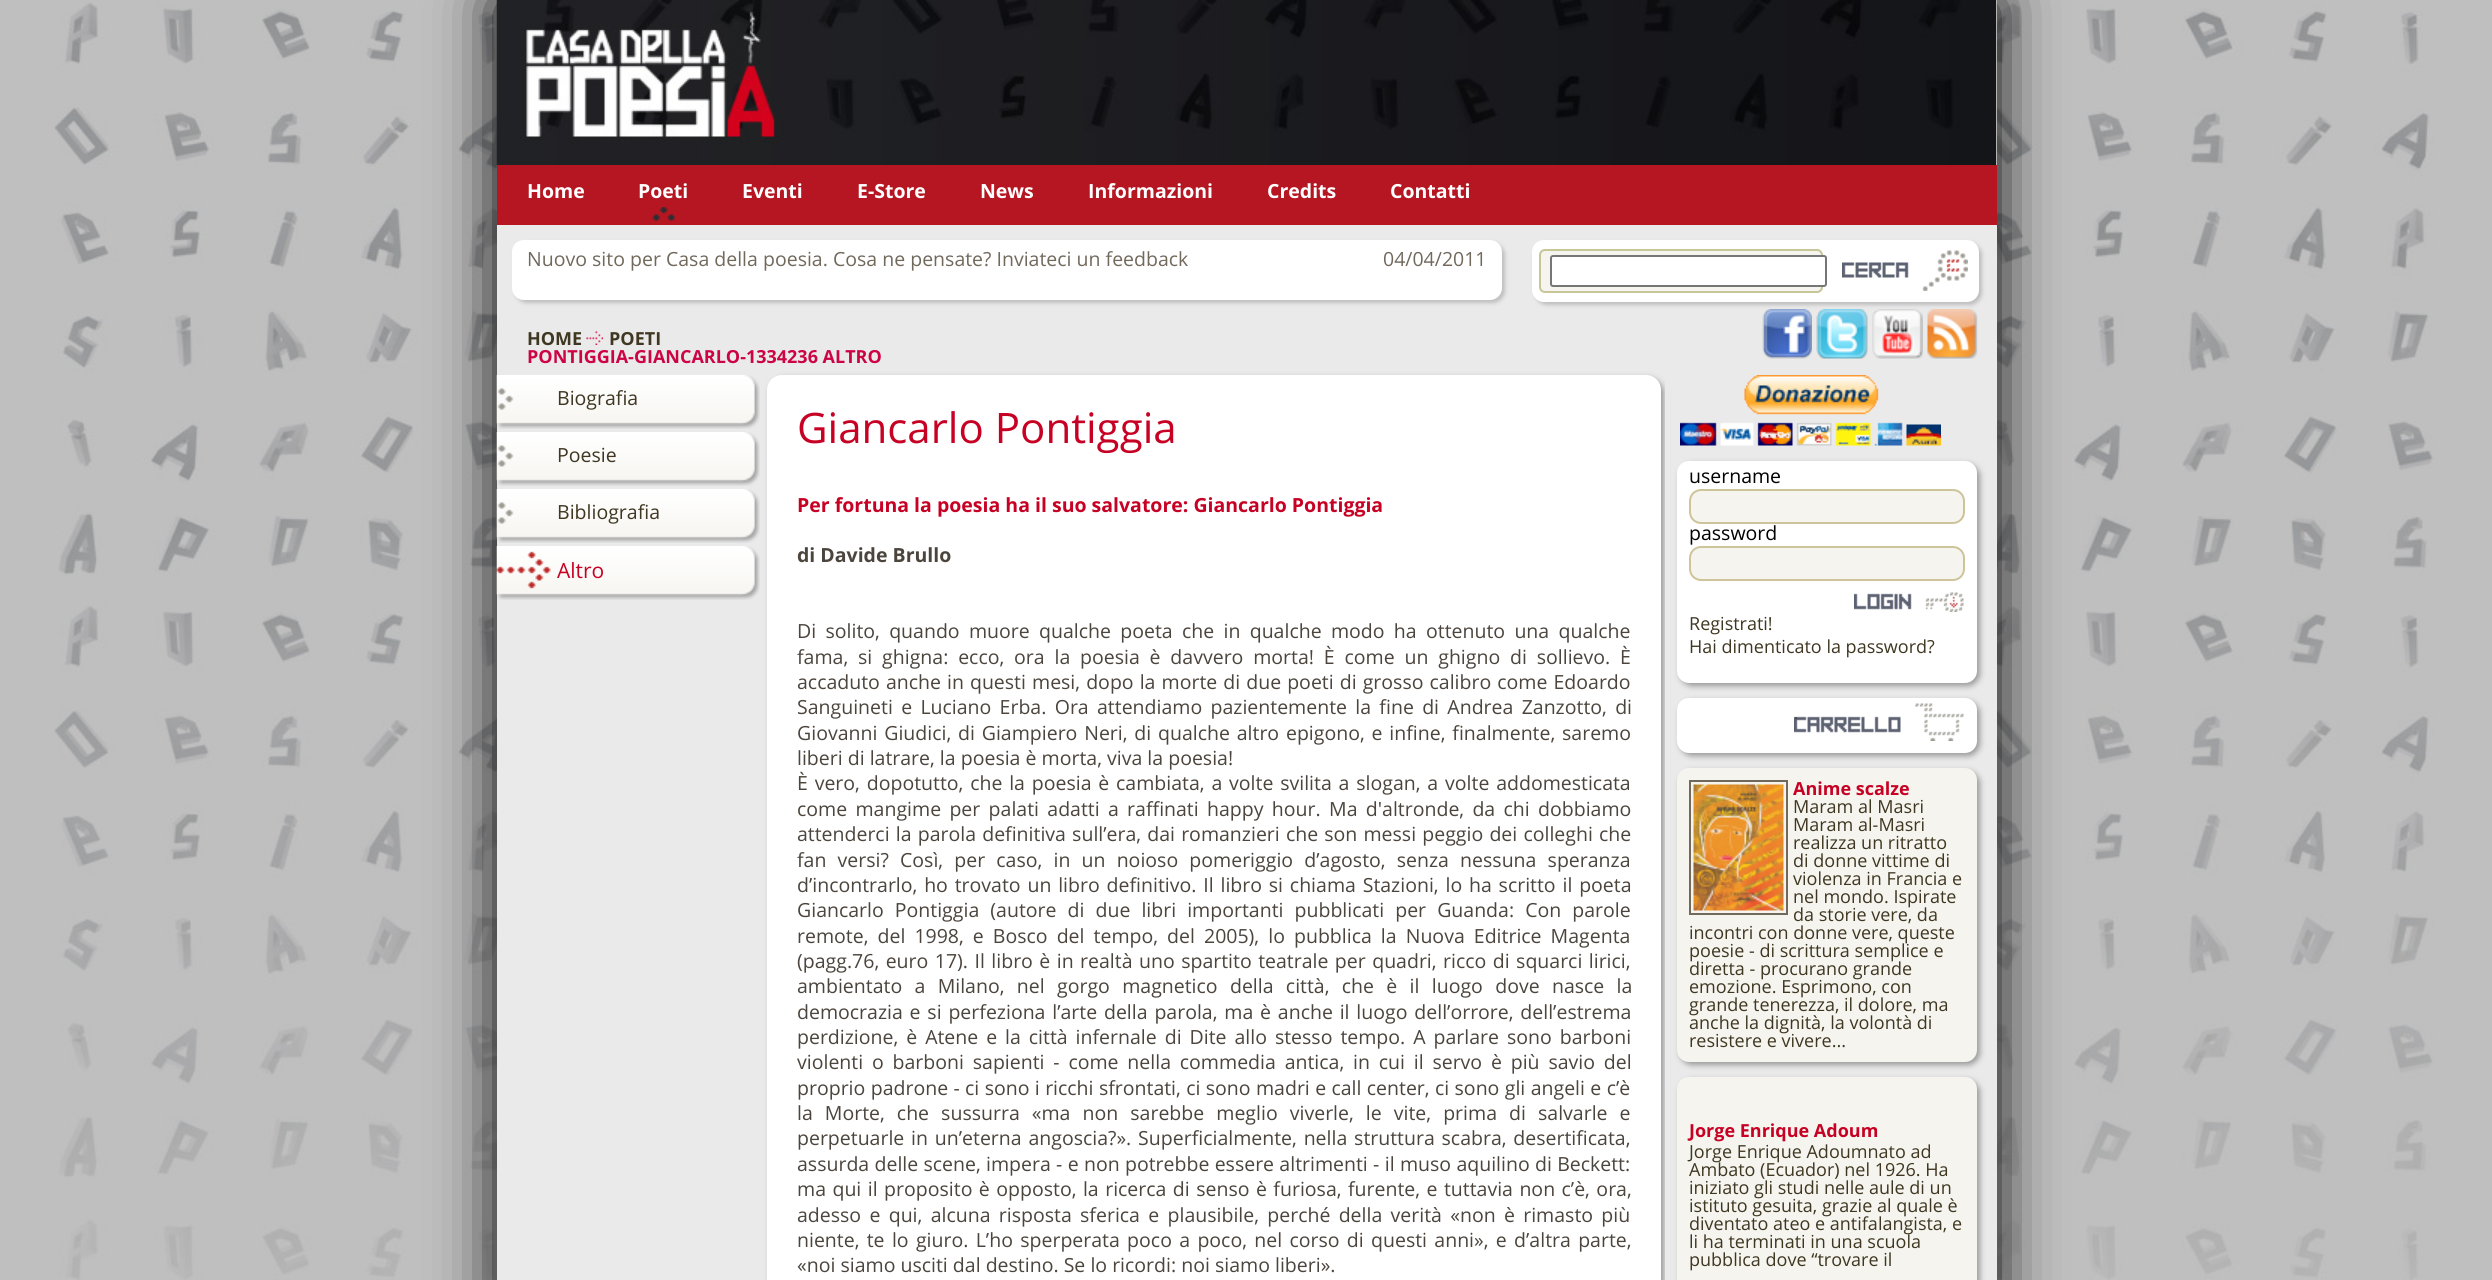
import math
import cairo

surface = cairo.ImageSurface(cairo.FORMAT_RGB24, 2492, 1280)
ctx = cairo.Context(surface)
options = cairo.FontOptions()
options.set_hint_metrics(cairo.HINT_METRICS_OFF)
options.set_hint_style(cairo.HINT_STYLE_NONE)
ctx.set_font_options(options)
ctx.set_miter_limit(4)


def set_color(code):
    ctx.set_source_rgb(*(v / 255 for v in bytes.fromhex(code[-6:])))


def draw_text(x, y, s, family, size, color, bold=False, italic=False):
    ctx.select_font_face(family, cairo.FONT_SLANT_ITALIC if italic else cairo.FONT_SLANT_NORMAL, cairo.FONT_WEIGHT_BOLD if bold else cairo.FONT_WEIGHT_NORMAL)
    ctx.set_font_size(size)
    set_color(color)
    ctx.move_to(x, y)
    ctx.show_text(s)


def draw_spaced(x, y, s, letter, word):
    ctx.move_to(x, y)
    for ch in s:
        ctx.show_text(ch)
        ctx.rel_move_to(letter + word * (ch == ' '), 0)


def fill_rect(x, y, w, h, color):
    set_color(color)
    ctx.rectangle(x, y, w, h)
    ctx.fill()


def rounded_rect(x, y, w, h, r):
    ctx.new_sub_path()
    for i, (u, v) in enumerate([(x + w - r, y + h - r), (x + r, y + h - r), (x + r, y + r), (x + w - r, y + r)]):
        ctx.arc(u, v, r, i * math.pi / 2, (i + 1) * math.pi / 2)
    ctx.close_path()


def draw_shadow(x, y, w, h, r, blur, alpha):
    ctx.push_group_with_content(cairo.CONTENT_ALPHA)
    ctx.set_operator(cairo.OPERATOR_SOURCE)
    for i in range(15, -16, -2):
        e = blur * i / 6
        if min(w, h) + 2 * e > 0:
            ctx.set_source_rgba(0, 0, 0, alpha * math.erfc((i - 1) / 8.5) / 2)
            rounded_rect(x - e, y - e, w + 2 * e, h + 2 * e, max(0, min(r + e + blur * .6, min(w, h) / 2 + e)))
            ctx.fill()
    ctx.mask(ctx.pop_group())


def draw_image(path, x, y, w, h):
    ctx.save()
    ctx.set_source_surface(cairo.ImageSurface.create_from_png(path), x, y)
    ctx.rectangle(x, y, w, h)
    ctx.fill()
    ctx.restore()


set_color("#bfbfbf")
ctx.paint()
draw_image("assets/img1.png", 54, 3, 2380, 1277)
set_color("#000000")
draw_shadow(497, 0, 1500, 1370, 0, 30, 1)
fill_rect(497, 0, 1500, 1280, "#eaeaea")
draw_image("assets/img2.png", 496, 0, 1501, 165)
fill_rect(497, 165, 1500, 60, "#b51621")
draw_text(527, 198, "Home", "Open Sans", 19.5, "#ffffff", bold=True)
draw_image("assets/img3.png", 652, 207, 23, 14)
draw_text(638, 198, "Poeti", "Open Sans", 19.5, "#ffffff", bold=True)
draw_text(742, 198, "Eventi", "Open Sans", 19.5, "#ffffff", bold=True)
draw_text(857, 198, "E-Store", "Open Sans", 19.5, "#ffffff", bold=True)
draw_text(980, 198, "News", "Open Sans", 19.5, "#ffffff", bold=True)
draw_text(1088, 198, "Informazioni", "Open Sans", 19.5, "#ffffff", bold=True)
draw_text(1267, 198, "Credits", "Open Sans", 19.5, "#ffffff", bold=True)
draw_text(1390, 198, "Contatti", "Open Sans", 19.5, "#ffffff", bold=True)
set_color("#bebebe")
draw_shadow(515, 243, 990, 60, 12, 2, 1)
set_color("#ffffff")
rounded_rect(512, 240, 990, 60, 12)
ctx.fill()
draw_text(527, 266, "Nuovo sito per Casa della poesia. Cosa ne pensate? Inviateci un feedback", "Open Sans", 19.5, "#72695d")
draw_text(1383, 266, "04/04/2011", "Open Sans", 19.5, "#72695d")
draw_text(527, 345, "HOME", "Open Sans", 18, "#3f3721", bold=True)
draw_image("assets/img4.png", 586, 331, 17, 14)
draw_text(609, 345, "POETI", "Open Sans", 18, "#3f3721", bold=True)
draw_text(527, 363, "PONTIGGIA-GIANCARLO-1334236 ALTRO", "Open Sans", 18, "#cc0445", bold=True)
set_color("#bebebe")
draw_shadow(1535, 243, 447, 62, 12, 2, 1)
set_color("#ffffff")
rounded_rect(1532, 240, 447, 62, 12)
ctx.fill()
set_color("#f5f4ef")
rounded_rect(1540, 250, 282, 42, 5)
ctx.fill_preserve()
set_color("#c7c696")
ctx.stroke()
set_color("#ffffff")
rounded_rect(1551, 256, 275, 30, 2)
ctx.fill_preserve()
set_color("#767676")
ctx.stroke()
draw_image("assets/img5.png", 1842, 250, 126, 41)
draw_image("assets/img6.png", 1762, 309, 50, 50)
draw_image("assets/img7.png", 1816, 309, 52, 50)
draw_image("assets/img8.png", 1872, 309, 51, 50)
draw_image("assets/img9.png", 1927, 309, 51, 50)
draw_image("assets/img10.png", 496, 375, 264, 54)
draw_text(557, 405, "Biografia", "Open Sans", 19.5, "#3f3721")
draw_image("assets/img11.png", 496, 432, 264, 54)
draw_text(557, 462, "Poesie", "Open Sans", 19.5, "#3f3721")
draw_image("assets/img12.png", 496, 489, 264, 54)
draw_text(557, 519, "Bibliografia", "Open Sans", 19.5, "#3f3721")
draw_image("assets/img13.png", 496, 546, 264, 54)
draw_text(557, 578, "Altro", "Open Sans", 21, "#c70124")
set_color("#999999")
draw_shadow(770, 378, 894, 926, 15, 3, 1)
set_color("#ffffff")
rounded_rect(767, 375, 894, 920, 15)
ctx.fill()
draw_text(797, 443, "Giancarlo Pontiggia", "Open Sans", 42, "#c70124")
draw_text(797, 512, "Per fortuna la poesia ha il suo salvatore: Giancarlo Pontiggia", "Open Sans", 19.5, "#c70124", bold=True)
draw_text(797, 562, "di Davide Brullo", "Open Sans", 19.5, "#4c453d", bold=True)
ctx.select_font_face("Open Sans")
draw_spaced(797, 638, "Di solito, quando muore qualche poeta che in qualche modo ha ottenuto una qualche", 0, 4.25)
draw_spaced(797, 664, "fama, si ghigna: ecco, ora la poesia è davvero morta! È come un ghigno di sollievo. È", 0, 4.75)
draw_spaced(797, 689, "accaduto anche in questi mesi, dopo la morte di due poeti di grosso calibro come Edoardo", 0, 1)
draw_spaced(797, 714, "Sanguineti e Luciano Erba. Ora attendiamo pazientemente la fine di Andrea Zanzotto, di", 0, 3.25)
draw_spaced(797, 740, "Giovanni Giudici, di Giampiero Neri, di qualche altro epigono, e infine, finalmente, saremo", 0, 1.75)
draw_text(797, 765, "liberi di latrare, la poesia è morta, viva la poesia!", "Open Sans", 19.5, "#4c453d")
draw_spaced(797, 790, "È vero, dopotutto, che la poesia è cambiata, a volte svilita a slogan, a volte addomesticata", 0, 1.75)
draw_spaced(797, 816, "come mangime per palati adatti a raffinati happy hour. Ma d'altronde, da chi dobbiamo", 0, 3.25)
draw_spaced(797, 841, "attenderci la parola definitiva sull’era, dai romanzieri che son messi peggio dei colleghi che", 0, 1.1)
draw_spaced(797, 867, "fan versi? Così, per caso, in un noioso pomeriggio d’agosto, senza nessuna speranza", 0, 6.1)
draw_spaced(797, 892, "d’incontrarlo, ho trovato un libro definitivo. Il libro si chiama Stazioni, lo ha scritto il poeta", 0, 1.75)
draw_spaced(797, 917, "Giancarlo Pontiggia (autore di due libri importanti pubblicati per Guanda: Con parole", 0, 6)
draw_spaced(797, 943, "remote, del 1998, e Bosco del tempo, del 2005), lo pubblica la Nuova Editrice Magenta", 0, 4)
draw_spaced(797, 968, "(pagg.76, euro 17). Il libro è in realtà uno spartito teatrale per quadri, ricco di squarci lirici,", 0, 1.4)
draw_spaced(797, 993, "ambientato a Milano, nel gorgo magnetico della città, che è il luogo dove nasce la", 0, 7.25)
draw_spaced(797, 1019, "democrazia e si perfeziona l’arte della parola, ma è anche il luogo dell’orrore, dell’estrema", 0, 1.75)
draw_spaced(797, 1044, "perdizione, è Atene e la città infernale di Dite allo stesso tempo. A parlare sono barboni", 0, 2.9)
draw_spaced(797, 1069, "violenti o barboni sapienti - come nella commedia antica, in cui il servo è più savio del", 0, 3.75)
draw_spaced(797, 1095, "proprio padrone - ci sono i ricchi sfrontati, ci sono madri e call center, ci sono gli angeli e c’è", 0, 0.3)
draw_spaced(797, 1120, "la Morte, che sussurra «ma non sarebbe meglio viverle, le vite, prima di salvarle e", 0, 7)
draw_spaced(797, 1145, "perpetuarle in un’eterna angoscia?». Superficialmente, nella struttura scabra, desertificata,", 0, 1.75)
draw_spaced(797, 1171, "assurda delle scene, impera - e non potrebbe essere altrimenti - il muso aquilino di Beckett:", 0, 0.25)
draw_spaced(797, 1196, "ma qui il proposito è opposto, la ricerca di senso è furiosa, furente, e tuttavia non c’è, ora,", 0, 1.4)
draw_spaced(797, 1222, "adesso e qui, alcuna risposta sferica e plausibile, perché della verità «non è rimasto più", 0, 3.25)
draw_spaced(797, 1247, "niente, te lo giuro. L’ho sperperata poco a poco, nel corso di questi anni», e d’altra parte,", 0, 2.25)
draw_text(797, 1272, "«noi siamo usciti dal destino. Se lo ricordi: noi siamo liberi».", "Open Sans", 19.5, "#4c453d")
fill_rect(1665, 381, 5, 899, "#eaeaea")
draw_image("assets/img14.png", 1680, 375, 261, 71)
set_color("#999999")
draw_shadow(1680, 464, 300, 222, 12, 3, 1)
set_color("#ffffff")
rounded_rect(1677, 461, 300, 222, 12)
ctx.fill()
draw_text(1689, 483, "username", "Open Sans", 19.5, "#000000")
set_color("#f5f4ef")
rounded_rect(1690, 490, 274, 33, 11)
ctx.fill_preserve()
set_color("#cdc499")
ctx.stroke()
draw_text(1689, 540, "password", "Open Sans", 19.5, "#000000")
set_color("#f5f4ef")
rounded_rect(1690, 547, 274, 33, 11)
ctx.fill_preserve()
set_color("#cdc499")
ctx.stroke()
draw_image("assets/img15.png", 1854, 592, 110, 20)
draw_text(1689, 630, "Registrati!", "Open Sans", 18, "#3f3721")
draw_text(1689, 653, "Hai dimenticato la password?", "Open Sans", 18, "#3f3721")
set_color("#999999")
draw_shadow(1680, 701, 300, 55, 12, 3, 1)
set_color("#ffffff")
rounded_rect(1677, 698, 300, 55, 12)
ctx.fill()
draw_image("assets/img16.png", 1794, 703, 170, 38)
draw_text(1794, 719, ".", "Open Sans", 16, "#4c453d")
set_color("#999999")
draw_shadow(1680, 771, 300, 294, 12, 3, 1)
set_color("#f5f4ef")
rounded_rect(1677, 768, 300, 294, 12)
ctx.fill()
ctx.rectangle(1690, 781, 97, 133)
set_color("#72695d")
ctx.stroke()
draw_image("assets/img17.png", 1693, 784, 91, 127)
draw_text(1793, 795, "Anime scalze", "Open Sans", 18, "#c70124", bold=True)
draw_text(1793, 813, "Maram al Masri", "Open Sans", 18, "#3f3721")
draw_text(1793, 831, "Maram al-Masri", "Open Sans", 18, "#3f3721")
draw_text(1793, 849, "realizza un ritratto", "Open Sans", 18, "#3f3721")
draw_text(1793, 867, "di donne vittime di", "Open Sans", 18, "#3f3721")
draw_text(1793, 885, "violenza in Francia e", "Open Sans", 18, "#3f3721")
draw_text(1793, 903, "nel mondo. Ispirate", "Open Sans", 18, "#3f3721")
draw_text(1793, 921, "da storie vere, da", "Open Sans", 18, "#3f3721")
draw_text(1689, 939, "incontri con donne vere, queste", "Open Sans", 18, "#3f3721")
draw_text(1689, 957, "poesie - di scrittura semplice e", "Open Sans", 18, "#3f3721")
draw_text(1689, 975, "diretta - procurano grande", "Open Sans", 18, "#3f3721")
draw_text(1689, 993, "emozione. Esprimono, con", "Open Sans", 18, "#3f3721")
draw_text(1689, 1011, "grande tenerezza, il dolore, ma", "Open Sans", 18, "#3f3721")
draw_text(1689, 1029, "anche la dignità, la volontà di", "Open Sans", 18, "#3f3721")
draw_text(1689, 1047, "resistere e vivere...", "Open Sans", 18, "#3f3721")
set_color("#999999")
draw_shadow(1680, 1080, 300, 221, 12, 3, 1)
set_color("#f5f4ef")
rounded_rect(1677, 1077, 300, 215, 12)
ctx.fill()
draw_text(1689, 1137, "Jorge Enrique Adoum", "Open Sans", 18, "#c70124", bold=True)
draw_text(1689, 1158, "Jorge Enrique Adoumnato ad", "Open Sans", 18, "#3f3721")
draw_text(1689, 1176, "Ambato (Ecuador) nel 1926. Ha", "Open Sans", 18, "#3f3721")
draw_text(1689, 1194, "iniziato gli studi nelle aule di un", "Open Sans", 18, "#3f3721")
draw_text(1689, 1212, "istituto gesuita, grazie al quale è", "Open Sans", 18, "#3f3721")
draw_text(1689, 1230, "diventato ateo e antifalangista, e", "Open Sans", 18, "#3f3721")
draw_text(1689, 1248, "li ha terminati in una scuola", "Open Sans", 18, "#3f3721")
draw_text(1689, 1266, "pubblica dove “trovare il", "Open Sans", 18, "#3f3721")
surface.write_to_png("output.png")
